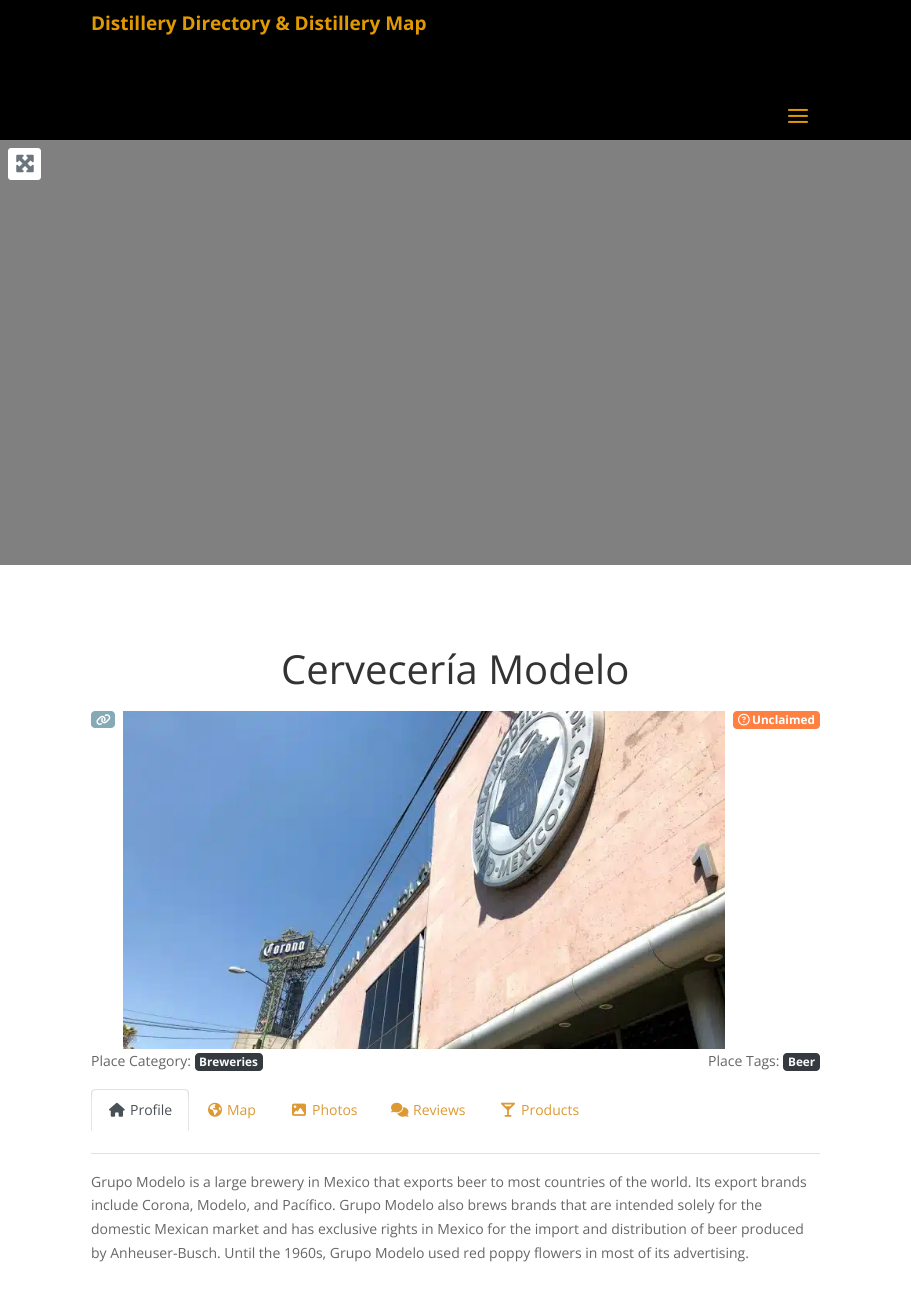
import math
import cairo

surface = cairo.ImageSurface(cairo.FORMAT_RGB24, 911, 1298)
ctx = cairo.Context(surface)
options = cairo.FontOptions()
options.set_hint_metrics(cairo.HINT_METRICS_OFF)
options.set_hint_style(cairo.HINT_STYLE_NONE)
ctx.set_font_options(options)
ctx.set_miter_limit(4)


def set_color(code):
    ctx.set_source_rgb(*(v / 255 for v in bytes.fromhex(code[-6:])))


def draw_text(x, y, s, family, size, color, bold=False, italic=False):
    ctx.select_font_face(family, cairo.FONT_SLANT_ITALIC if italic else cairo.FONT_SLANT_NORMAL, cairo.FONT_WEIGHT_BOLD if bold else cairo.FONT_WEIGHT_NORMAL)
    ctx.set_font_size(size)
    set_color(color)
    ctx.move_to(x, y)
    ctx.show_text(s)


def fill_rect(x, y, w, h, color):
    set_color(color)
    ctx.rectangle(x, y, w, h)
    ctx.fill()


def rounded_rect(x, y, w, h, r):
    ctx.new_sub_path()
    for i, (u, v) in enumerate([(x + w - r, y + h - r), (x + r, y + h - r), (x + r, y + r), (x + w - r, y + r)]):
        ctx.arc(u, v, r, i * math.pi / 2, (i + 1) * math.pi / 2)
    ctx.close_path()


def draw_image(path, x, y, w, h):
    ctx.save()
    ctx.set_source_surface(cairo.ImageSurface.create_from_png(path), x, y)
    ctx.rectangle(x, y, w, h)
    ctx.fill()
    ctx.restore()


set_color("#ffffff")
ctx.paint()
fill_rect(0, 0, 911, 140, "#000000")
draw_text(91, 30, "Distillery Directory & Distillery Map", "Open Sans", 19, "#e09900", bold=True)
draw_image("assets/img1.png", 788, 108, 20, 15)
fill_rect(0, 140, 911, 425, "#808080")
set_color("#ffffff")
rounded_rect(8, 148, 33, 32, 3)
ctx.fill()
draw_image("assets/img2.png", 16, 154, 18, 19)
draw_text(281, 684, "Cervecería Modelo", "Open Sans", 40, "#333333")
set_color("#85a9b5")
rounded_rect(91, 711, 24, 17, 4)
ctx.fill()
draw_image("assets/img3.png", 96, 714, 15, 11)
draw_image("assets/img4.png", 123, 711, 602, 338)
set_color("#ff8040")
rounded_rect(733, 711, 87, 18, 4)
ctx.fill()
draw_image("assets/img5.png", 738, 713, 12, 13)
draw_text(752, 724, "Unclaimed", "Open Sans", 11.75, "#ffffff", bold=True)
draw_text(91, 1066, "Place Category:", "Open Sans", 14, "#666666")
set_color("#343a40")
rounded_rect(195, 1053, 68, 18, 4)
ctx.fill()
draw_text(199, 1066, "Breweries", "Open Sans", 11.75, "#f8f9fa", bold=True)
draw_text(708, 1066, "Place Tags:", "Open Sans", 14, "#666666")
set_color("#343a40")
rounded_rect(783, 1053, 37, 18, 4)
ctx.fill()
draw_text(788, 1066, "Beer", "Open Sans", 11.75, "#f8f9fa", bold=True)
fill_rect(91, 1153, 729, 1, "#dee2e6")
ctx.new_path()
ctx.move_to(95, 1089)
ctx.line_to(92, 1090)
ctx.line_to(93, 1091)
ctx.line_to(95, 1090)
ctx.line_to(185, 1090)
ctx.line_to(187, 1091)
ctx.line_to(188, 1090)
ctx.line_to(185, 1089)
ctx.close_path()
ctx.fill()
ctx.new_path()
ctx.move_to(189, 1131)
ctx.line_to(189, 1093)
ctx.curve_to(189, 1092, 188, 1091, 188, 1090)
ctx.line_to(187, 1091)
ctx.curve_to(189, 1093, 188, 1125, 188, 1130)
ctx.close_path()
ctx.fill()
set_color("#ffffff")
ctx.new_path()
ctx.move_to(189, 1131)
ctx.line_to(188, 1130)
ctx.line_to(92, 1130)
ctx.line_to(91, 1131)
ctx.close_path()
ctx.fill()
set_color("#dee2e6")
ctx.new_path()
ctx.move_to(91, 1131)
ctx.line_to(92, 1130)
ctx.curve_to(92, 1125, 91, 1093, 93, 1091)
ctx.line_to(92, 1090)
ctx.line_to(91, 1093)
ctx.close_path()
ctx.fill()
draw_image("assets/img6.png", 109, 1102, 16, 15)
draw_text(130, 1115, "Profile", "Open Sans", 14, "#495057")
draw_image("assets/img7.png", 208, 1102, 14, 15)
draw_text(227, 1115, "Map", "Open Sans", 14, "#dd9933")
draw_image("assets/img8.png", 292, 1103, 14, 13)
draw_text(312, 1115, "Photos", "Open Sans", 14, "#dd9933")
draw_image("assets/img9.png", 391, 1102, 18, 15)
draw_text(413, 1115, "Reviews", "Open Sans", 14, "#dd9933")
draw_image("assets/img10.png", 501, 1102, 14, 15)
draw_text(521, 1115, "Products", "Open Sans", 14, "#dd9933")
draw_text(91, 1187, "Grupo Modelo is a large brewery in Mexico that exports beer to most countries of the world. Its export brands", "Open Sans", 14, "#666666")
draw_text(91, 1210, "include Corona, Modelo, and Pacífico. Grupo Modelo also brews brands that are intended solely for the", "Open Sans", 14, "#666666")
draw_text(91, 1234, "domestic Mexican market and has exclusive rights in Mexico for the import and distribution of beer produced", "Open Sans", 14, "#666666")
draw_text(91, 1258, "by Anheuser-Busch. Until the 1960s, Grupo Modelo used red poppy flowers in most of its advertising.", "Open Sans", 14, "#666666")
surface.write_to_png("output.png")
